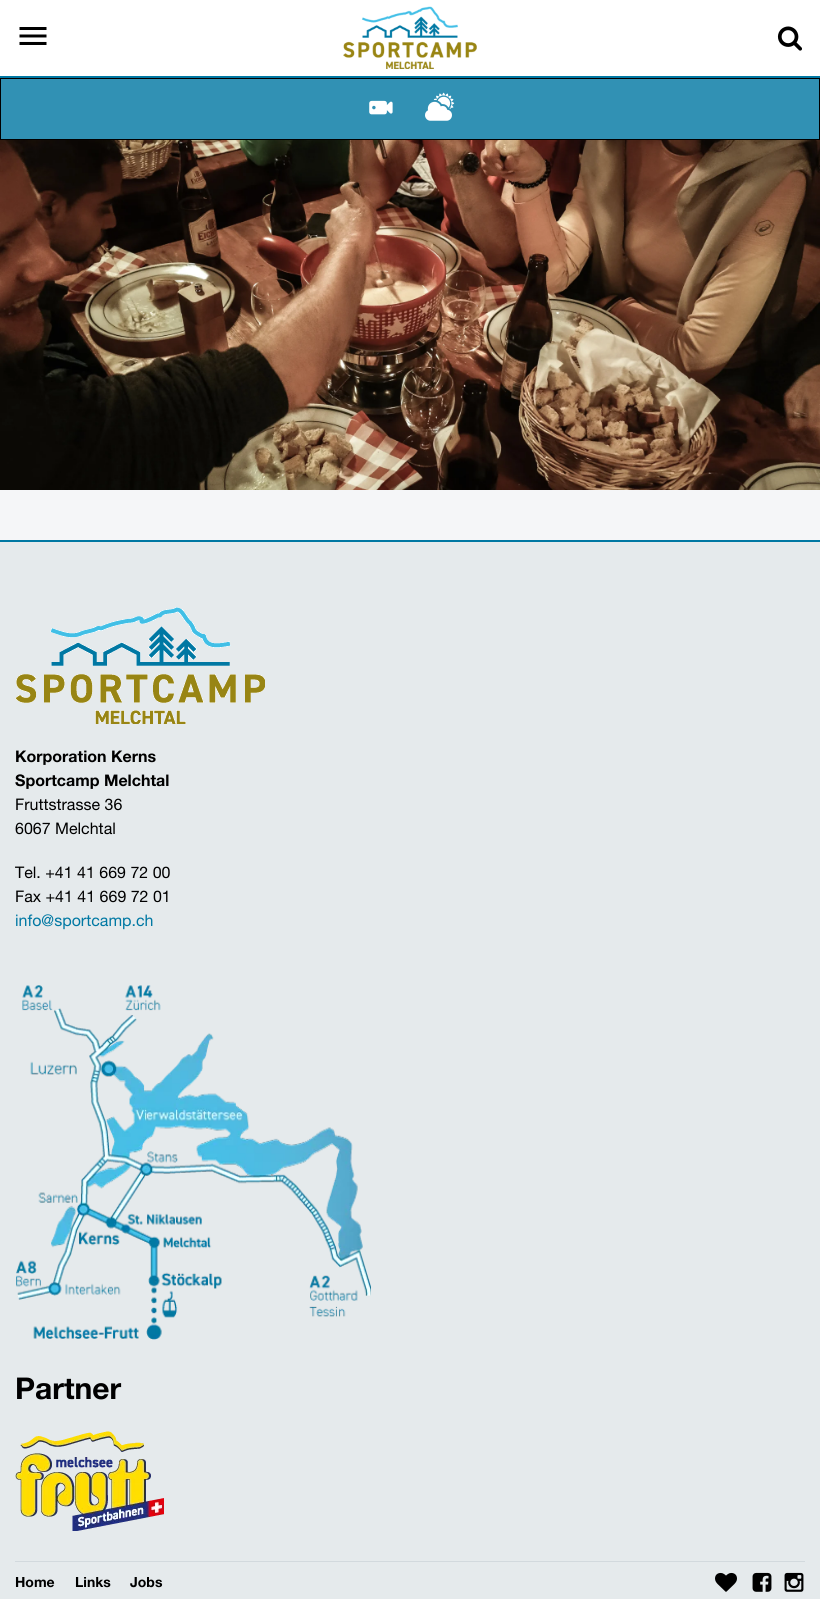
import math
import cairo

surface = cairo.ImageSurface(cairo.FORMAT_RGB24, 820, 1599)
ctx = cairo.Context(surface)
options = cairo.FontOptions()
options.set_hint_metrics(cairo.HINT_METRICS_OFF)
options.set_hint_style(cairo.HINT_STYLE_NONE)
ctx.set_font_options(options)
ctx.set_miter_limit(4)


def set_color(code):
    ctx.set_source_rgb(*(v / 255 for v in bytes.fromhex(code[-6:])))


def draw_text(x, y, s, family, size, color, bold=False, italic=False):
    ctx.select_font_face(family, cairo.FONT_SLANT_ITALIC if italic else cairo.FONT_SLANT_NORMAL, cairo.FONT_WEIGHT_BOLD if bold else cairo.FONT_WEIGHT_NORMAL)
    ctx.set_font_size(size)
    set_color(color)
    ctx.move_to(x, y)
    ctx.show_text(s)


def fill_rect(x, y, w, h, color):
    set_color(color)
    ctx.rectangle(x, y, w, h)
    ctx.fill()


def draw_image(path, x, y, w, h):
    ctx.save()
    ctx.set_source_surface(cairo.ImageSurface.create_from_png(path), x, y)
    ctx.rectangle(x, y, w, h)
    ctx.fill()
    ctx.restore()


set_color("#f5f6f8")
ctx.paint()
fill_rect(0, 0, 820, 76, "#ffffff")
fill_rect(0, 76, 820, 2, "#0078a3")
draw_image("assets/img1.png", 19, 27, 28, 18)
draw_image("assets/img2.png", 343, 6, 134, 63)
draw_image("assets/img3.png", 777, 26, 25, 25)
set_color("#3191b4")
ctx.rectangle(0.5, 78.5, 819, 61)
ctx.fill_preserve()
set_color("#000000")
ctx.set_line_width(1)
ctx.stroke()
draw_image("assets/img4.png", 369, 100, 24, 15)
draw_image("assets/img5.png", 425, 92, 30, 29)
draw_image("assets/img6.png", 0, 140, 820, 350)
fill_rect(0, 542, 820, 1057, "#e5eaec")
fill_rect(0, 540, 820, 2, "#0078a3")
draw_image("assets/img7.png", 15, 607, 250, 117)
draw_text(15, 762, "Korporation Kerns", "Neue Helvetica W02", 16, "#000000", bold=True)
draw_text(15, 786, "Sportcamp Melchtal", "Neue Helvetica W02", 16, "#000000", bold=True)
draw_text(15, 810, "Fruttstrasse 36", "Neue Helvetica W02", 16, "#000000")
draw_text(15, 834, "6067 Melchtal", "Neue Helvetica W02", 16, "#000000")
draw_text(15, 878, "Tel. +41 41 669 72 00", "Neue Helvetica W02", 16, "#000000")
draw_text(15, 902, "Fax +41 41 669 72 01", "Neue Helvetica W02", 16, "#000000")
draw_text(15, 926, "info@sportcamp.ch", "Neue Helvetica W02", 16, "#0078a3")
draw_image("assets/img8.png", 16, 985, 355, 355)
draw_text(15, 1399, "Partner", "Neue Helvetica W02", 30, "#000000", bold=True)
draw_image("assets/img9.png", 15, 1431, 149, 100)
fill_rect(15, 1561, 790, 1, "#d2d9dd")
draw_text(15, 1587, "Home", "Neue Helvetica W02", 14, "#000000", bold=True)
draw_text(75, 1587, "Links", "Neue Helvetica W02", 14, "#000000", bold=True)
draw_text(130, 1587, "Jobs", "Neue Helvetica W02", 14, "#000000", bold=True)
draw_image("assets/img10.png", 715, 1572, 22, 20)
draw_image("assets/img11.png", 752, 1572, 20, 20)
draw_image("assets/img12.png", 784, 1572, 20, 20)
surface.write_to_png("output.png")
